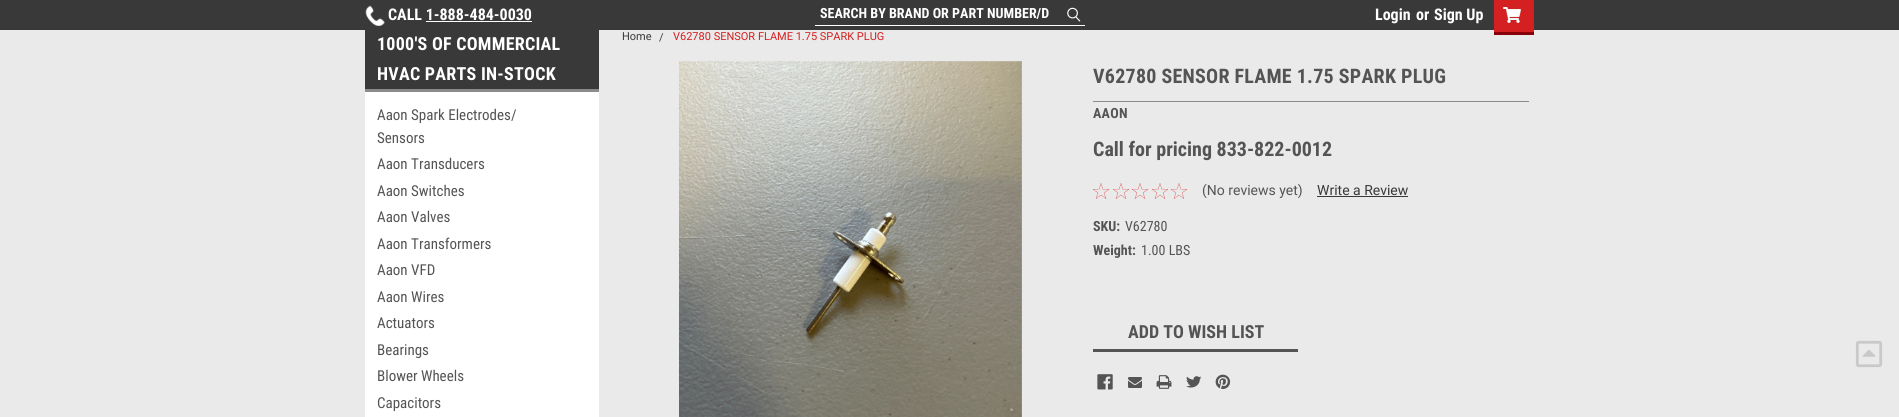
import math
import cairo

surface = cairo.ImageSurface(cairo.FORMAT_RGB24, 1899, 417)
ctx = cairo.Context(surface)
options = cairo.FontOptions()
options.set_hint_metrics(cairo.HINT_METRICS_OFF)
options.set_hint_style(cairo.HINT_STYLE_NONE)
ctx.set_font_options(options)
ctx.set_miter_limit(4)


def set_color(code):
    ctx.set_source_rgb(*(v / 255 for v in bytes.fromhex(code[-6:])))


def draw_text(x, y, s, family, size, color, bold=False, italic=False):
    ctx.select_font_face(family, cairo.FONT_SLANT_ITALIC if italic else cairo.FONT_SLANT_NORMAL, cairo.FONT_WEIGHT_BOLD if bold else cairo.FONT_WEIGHT_NORMAL)
    ctx.set_font_size(size)
    set_color(color)
    ctx.move_to(x, y)
    ctx.show_text(s)


def draw_spaced(x, y, s, letter, word):
    ctx.move_to(x, y)
    for ch in s:
        ctx.show_text(ch)
        ctx.rel_move_to(letter + word * (ch == ' '), 0)


def fill_rect(x, y, w, h, color):
    set_color(color)
    ctx.rectangle(x, y, w, h)
    ctx.fill()


def draw_image(path, x, y, w, h):
    ctx.save()
    ctx.set_source_surface(cairo.ImageSurface.create_from_png(path), x, y)
    ctx.rectangle(x, y, w, h)
    ctx.fill()
    ctx.restore()


set_color("#eaeaea")
ctx.paint()
fill_rect(0, 0, 1899, 30, "#393939")
fill_rect(815, 25, 270, 1, "#ffffff")
draw_text(820, 18, "SEARCH BY BRAND OR PART NUMBER/D", "Roboto Condensed", 14, "#ffffff", bold=True)
draw_image("assets/img1.png", 1067, 7, 14, 15)
draw_image("assets/img2.png", 365, 5, 20, 21)
draw_text(388, 20, "CALL 1-888-484-0030", "Roboto Condensed", 16, "#ffffff", bold=True)
fill_rect(426, 21, 106, 1, "#ffffff")
draw_text(1375, 20, "Login", "Roboto Condensed", 16, "#ffffff", bold=True)
draw_text(1416, 20, "or", "Roboto Condensed", 16, "#ffffff", bold=True)
draw_text(1434, 20, "Sign Up", "Roboto Condensed", 16, "#ffffff", bold=True)
fill_rect(1494, 0, 40, 32, "#d42020")
fill_rect(1494, 32, 40, 3, "#860109")
draw_image("assets/img3.png", 1503, 6, 18, 17)
fill_rect(365, 30, 234, 59, "#393939")
fill_rect(365, 89, 234, 3, "#8b8b8b")
ctx.set_font_size(18)
set_color("#ffffff")
draw_spaced(377, 50, "1000'S OF COMMERCIAL", 0.25, 0)
draw_spaced(377, 80, "HVAC PARTS IN-STOCK", 0.25, 0)
fill_rect(365, 92, 234, 325, "#ffffff")
draw_text(377, 120, "Aaon Spark Electrodes/", "Roboto Condensed", 15, "#545454")
draw_text(377, 143, "Sensors", "Roboto Condensed", 15, "#545454")
draw_text(377, 169, "Aaon Transducers", "Roboto Condensed", 15, "#545454")
draw_text(377, 196, "Aaon Switches", "Roboto Condensed", 15, "#545454")
draw_text(377, 222, "Aaon Valves", "Roboto Condensed", 15, "#545454")
draw_text(377, 249, "Aaon Transformers", "Roboto Condensed", 15, "#545454")
draw_text(377, 275, "Aaon VFD", "Roboto Condensed", 15, "#545454")
draw_text(377, 302, "Aaon Wires", "Roboto Condensed", 15, "#545454")
draw_text(377, 328, "Actuators", "Roboto Condensed", 15, "#545454")
draw_text(377, 355, "Bearings", "Roboto Condensed", 15, "#545454")
draw_text(377, 381, "Blower Wheels", "Roboto Condensed", 15, "#545454")
draw_text(377, 408, "Capacitors", "Roboto Condensed", 15, "#545454")
draw_text(622, 40, "Home", "Roboto", 11, "#393939")
draw_text(659, 41, "/", "Roboto", 11, "#393939")
draw_text(673, 40, "V62780 SENSOR FLAME 1.75 SPARK PLUG", "Roboto", 11, "#d42020")
draw_image("assets/img4.png", 679, 61, 343, 356)
fill_rect(1093, 101, 436, 1, "#8b8b8b")
ctx.select_font_face("Roboto Condensed", cairo.FONT_SLANT_NORMAL, cairo.FONT_WEIGHT_BOLD)
ctx.set_font_size(20)
set_color("#545454")
draw_spaced(1093, 83, "V62780 SENSOR FLAME 1.75 SPARK PLUG", 0.25, 0)
ctx.set_font_size(14)
draw_spaced(1093, 118, "AAON", 0.25, 0)
draw_text(1093, 156, "Call for pricing 833-822-0012", "Roboto Condensed", 20, "#545454", bold=True)
draw_image("assets/img5.png", 1093, 183, 16, 16)
draw_image("assets/img5.png", 1113, 183, 16, 16)
draw_image("assets/img5.png", 1132, 183, 16, 16)
draw_image("assets/img5.png", 1152, 183, 16, 16)
draw_image("assets/img5.png", 1171, 183, 16, 16)
draw_text(1202, 195, "(No reviews yet)", "Roboto", 14, "#545454")
draw_text(1317, 195, "Write a Review", "Roboto", 14, "#393939")
fill_rect(1317, 196, 91, 1, "#393939")
draw_text(1093, 231, "SKU:", "Roboto Condensed", 14, "#545454", bold=True)
draw_text(1125, 231, "V62780", "Roboto Condensed", 14, "#545454")
draw_text(1093, 255, "Weight:", "Roboto Condensed", 14, "#545454", bold=True)
draw_text(1141, 255, "1.00 LBS", "Roboto Condensed", 14, "#545454")
fill_rect(1093, 349, 205, 3, "#545454")
draw_text(1128, 338, "ADD TO WISH LIST", "Roboto Condensed", 18, "#545454", bold=True)
draw_image("assets/img6.png", 1097, 374, 16, 16)
draw_image("assets/img7.png", 1128, 377, 14, 11)
draw_image("assets/img8.png", 1156, 375, 16, 14)
draw_image("assets/img9.png", 1186, 376, 16, 12)
draw_image("assets/img10.png", 1215, 374, 16, 15)
draw_image("assets/img11.png", 1855, 340, 28, 28)
surface.write_to_png("output.png")
